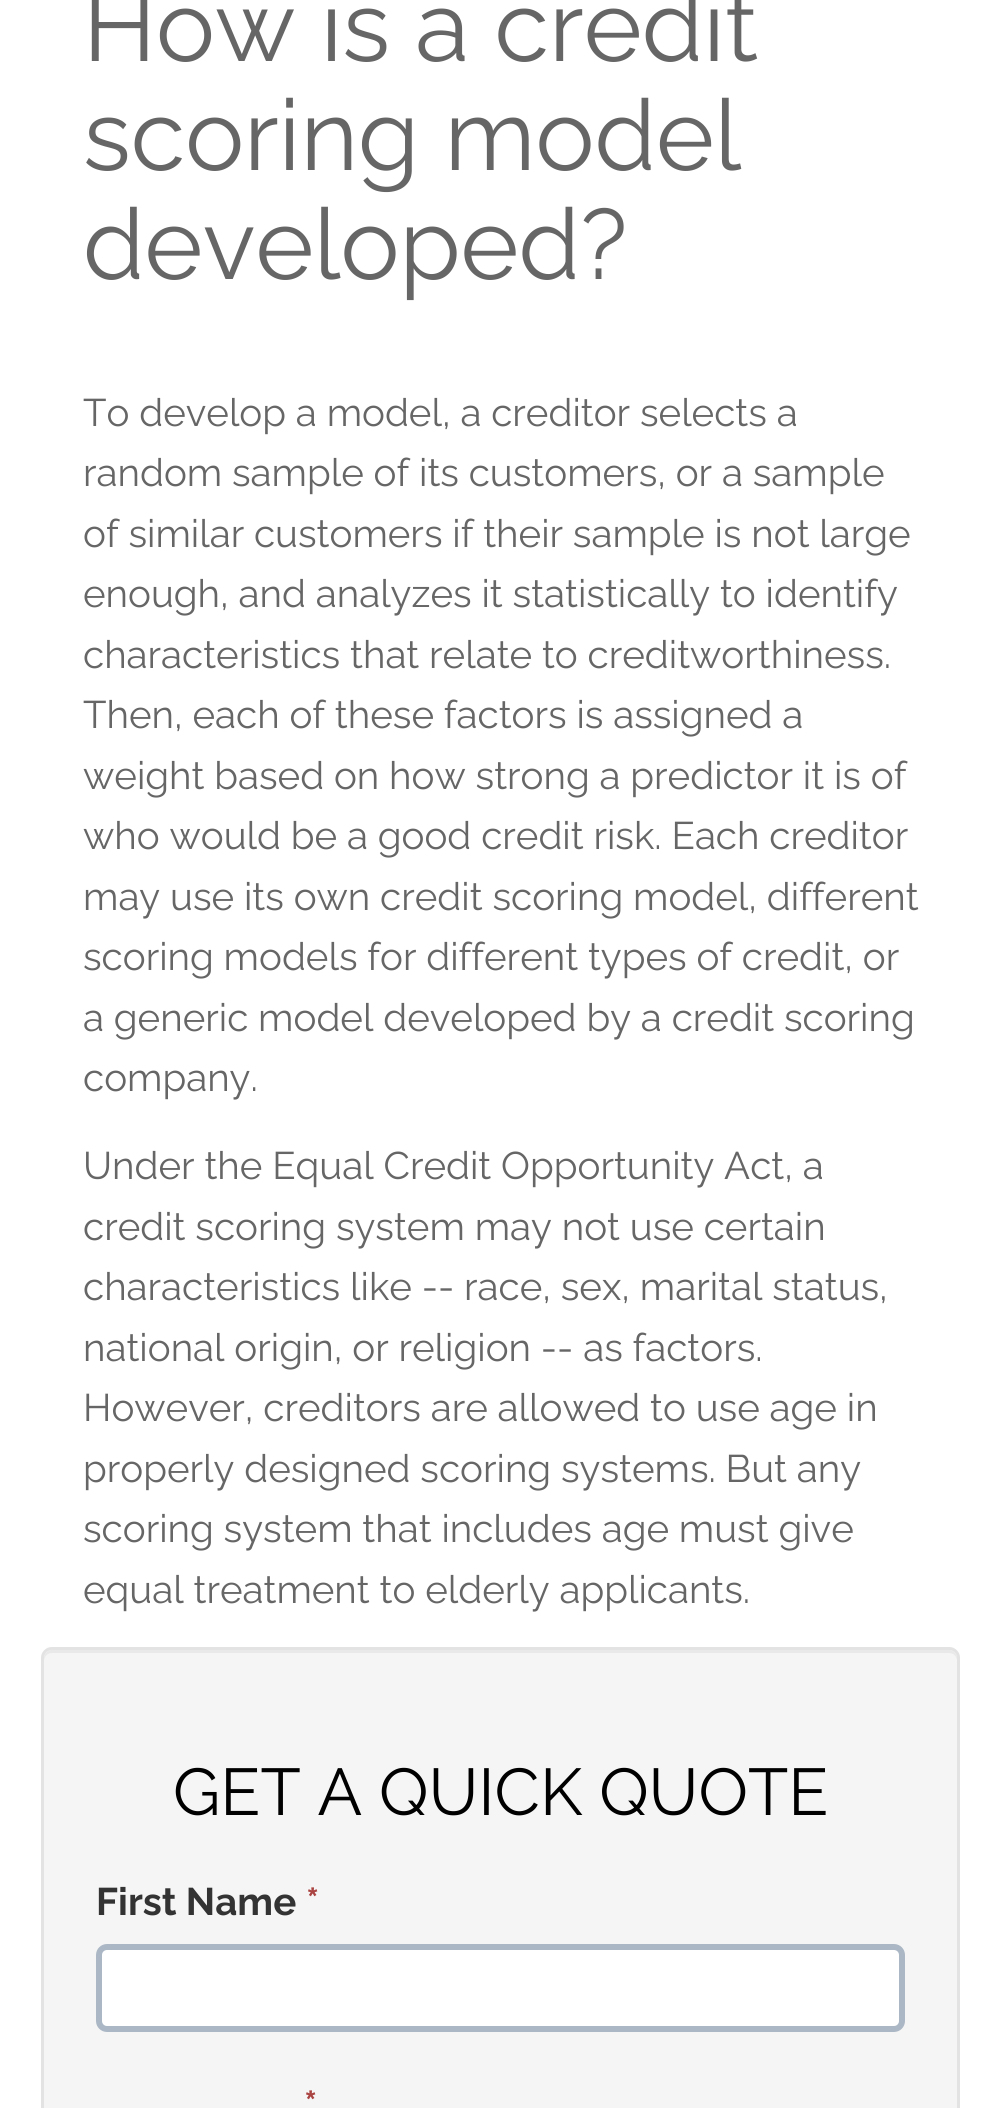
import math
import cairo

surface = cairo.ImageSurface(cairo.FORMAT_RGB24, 999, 2108)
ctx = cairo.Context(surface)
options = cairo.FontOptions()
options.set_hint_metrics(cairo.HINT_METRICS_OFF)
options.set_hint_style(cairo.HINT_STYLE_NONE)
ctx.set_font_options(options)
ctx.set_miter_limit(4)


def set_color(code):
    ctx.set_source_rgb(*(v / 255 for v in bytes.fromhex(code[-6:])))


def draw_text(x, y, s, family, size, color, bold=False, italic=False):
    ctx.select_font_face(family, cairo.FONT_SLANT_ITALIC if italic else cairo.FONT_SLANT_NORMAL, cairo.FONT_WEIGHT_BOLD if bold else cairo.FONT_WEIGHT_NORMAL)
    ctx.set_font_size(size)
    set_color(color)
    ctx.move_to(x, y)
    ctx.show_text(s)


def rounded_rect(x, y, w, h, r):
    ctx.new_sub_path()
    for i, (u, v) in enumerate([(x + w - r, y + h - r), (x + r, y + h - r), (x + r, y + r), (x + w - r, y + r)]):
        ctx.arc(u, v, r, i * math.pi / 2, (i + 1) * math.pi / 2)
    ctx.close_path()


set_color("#ffffff")
ctx.paint()
draw_text(83, 61, "How is a credit", "Raleway", 99, "#666666")
draw_text(83, 170, "scoring model", "Raleway", 99, "#666666")
draw_text(83, 279, "developed?", "Raleway", 99, "#666666")
draw_text(83, 426, "To develop a model, a creditor selects a", "Raleway", 38.5, "#666666")
draw_text(83, 486, "random sample of its customers, or a sample", "Raleway", 38.5, "#666666")
draw_text(83, 547, "of similar customers if their sample is not large", "Raleway", 38.5, "#666666")
draw_text(83, 607, "enough, and analyzes it statistically to identify", "Raleway", 38.5, "#666666")
draw_text(83, 668, "characteristics that relate to creditworthiness.", "Raleway", 38.5, "#666666")
draw_text(83, 728, "Then, each of these factors is assigned a", "Raleway", 38.5, "#666666")
draw_text(83, 789, "weight based on how strong a predictor it is of", "Raleway", 38.5, "#666666")
draw_text(83, 849, "who would be a good credit risk. Each creditor", "Raleway", 38.5, "#666666")
draw_text(83, 910, "may use its own credit scoring model, different", "Raleway", 38.5, "#666666")
draw_text(83, 970, "scoring models for different types of credit, or", "Raleway", 38.5, "#666666")
draw_text(83, 1031, "a generic model developed by a credit scoring", "Raleway", 38.5, "#666666")
draw_text(83, 1091, "company.", "Raleway", 38.5, "#666666")
draw_text(83, 1179, "Under the Equal Credit Opportunity Act, a", "Raleway", 38.5, "#666666")
draw_text(83, 1240, "credit scoring system may not use certain", "Raleway", 38.5, "#666666")
draw_text(83, 1300, "characteristics like -- race, sex, marital status,", "Raleway", 38.5, "#666666")
draw_text(83, 1361, "national origin, or religion -- as factors.", "Raleway", 38.5, "#666666")
draw_text(83, 1421, "However, creditors are allowed to use age in", "Raleway", 38.5, "#666666")
draw_text(83, 1482, "properly designed scoring systems. But any", "Raleway", 38.5, "#666666")
draw_text(83, 1542, "scoring system that includes age must give", "Raleway", 38.5, "#666666")
draw_text(83, 1603, "equal treatment to elderly applicants.", "Raleway", 38.5, "#666666")
set_color("#f5f5f5")
rounded_rect(41, 1647, 919, 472, 11)
ctx.fill()
set_color("#e9e9e9")
ctx.new_path()
ctx.move_to(52, 1653)
ctx.line_to(949, 1653)
ctx.curve_to(953, 1653, 957, 1656, 957, 1661)
ctx.line_to(957, 1658)
ctx.curve_to(957, 1654, 953, 1650, 949, 1650)
ctx.line_to(52, 1650)
ctx.curve_to(48, 1650, 44, 1654, 44, 1658)
ctx.line_to(44, 1661)
ctx.curve_to(44, 1656, 48, 1653, 52, 1653)
ctx.close_path()
ctx.fill()
rounded_rect(42.5, 1648.5, 916, 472, 9.5)
set_color("#e3e3e3")
ctx.set_line_width(3)
ctx.stroke()
draw_text(173, 1815, "GET A QUICK QUOTE", "Raleway", 66, "#000000")
draw_text(96, 1915, "First Name", "Raleway", 38.5, "#333333", bold=True)
draw_text(306, 1915, "*", "Raleway", 38.5, "#a94442", bold=True)
set_color("#ffffff")
rounded_rect(99, 1947, 803, 82, 8)
ctx.fill_preserve()
set_color("#abb7c5")
ctx.set_line_width(6)
ctx.stroke()
draw_text(304, 2118, "*", "Raleway", 38.5, "#a94442", bold=True)
surface.write_to_png("output.png")
